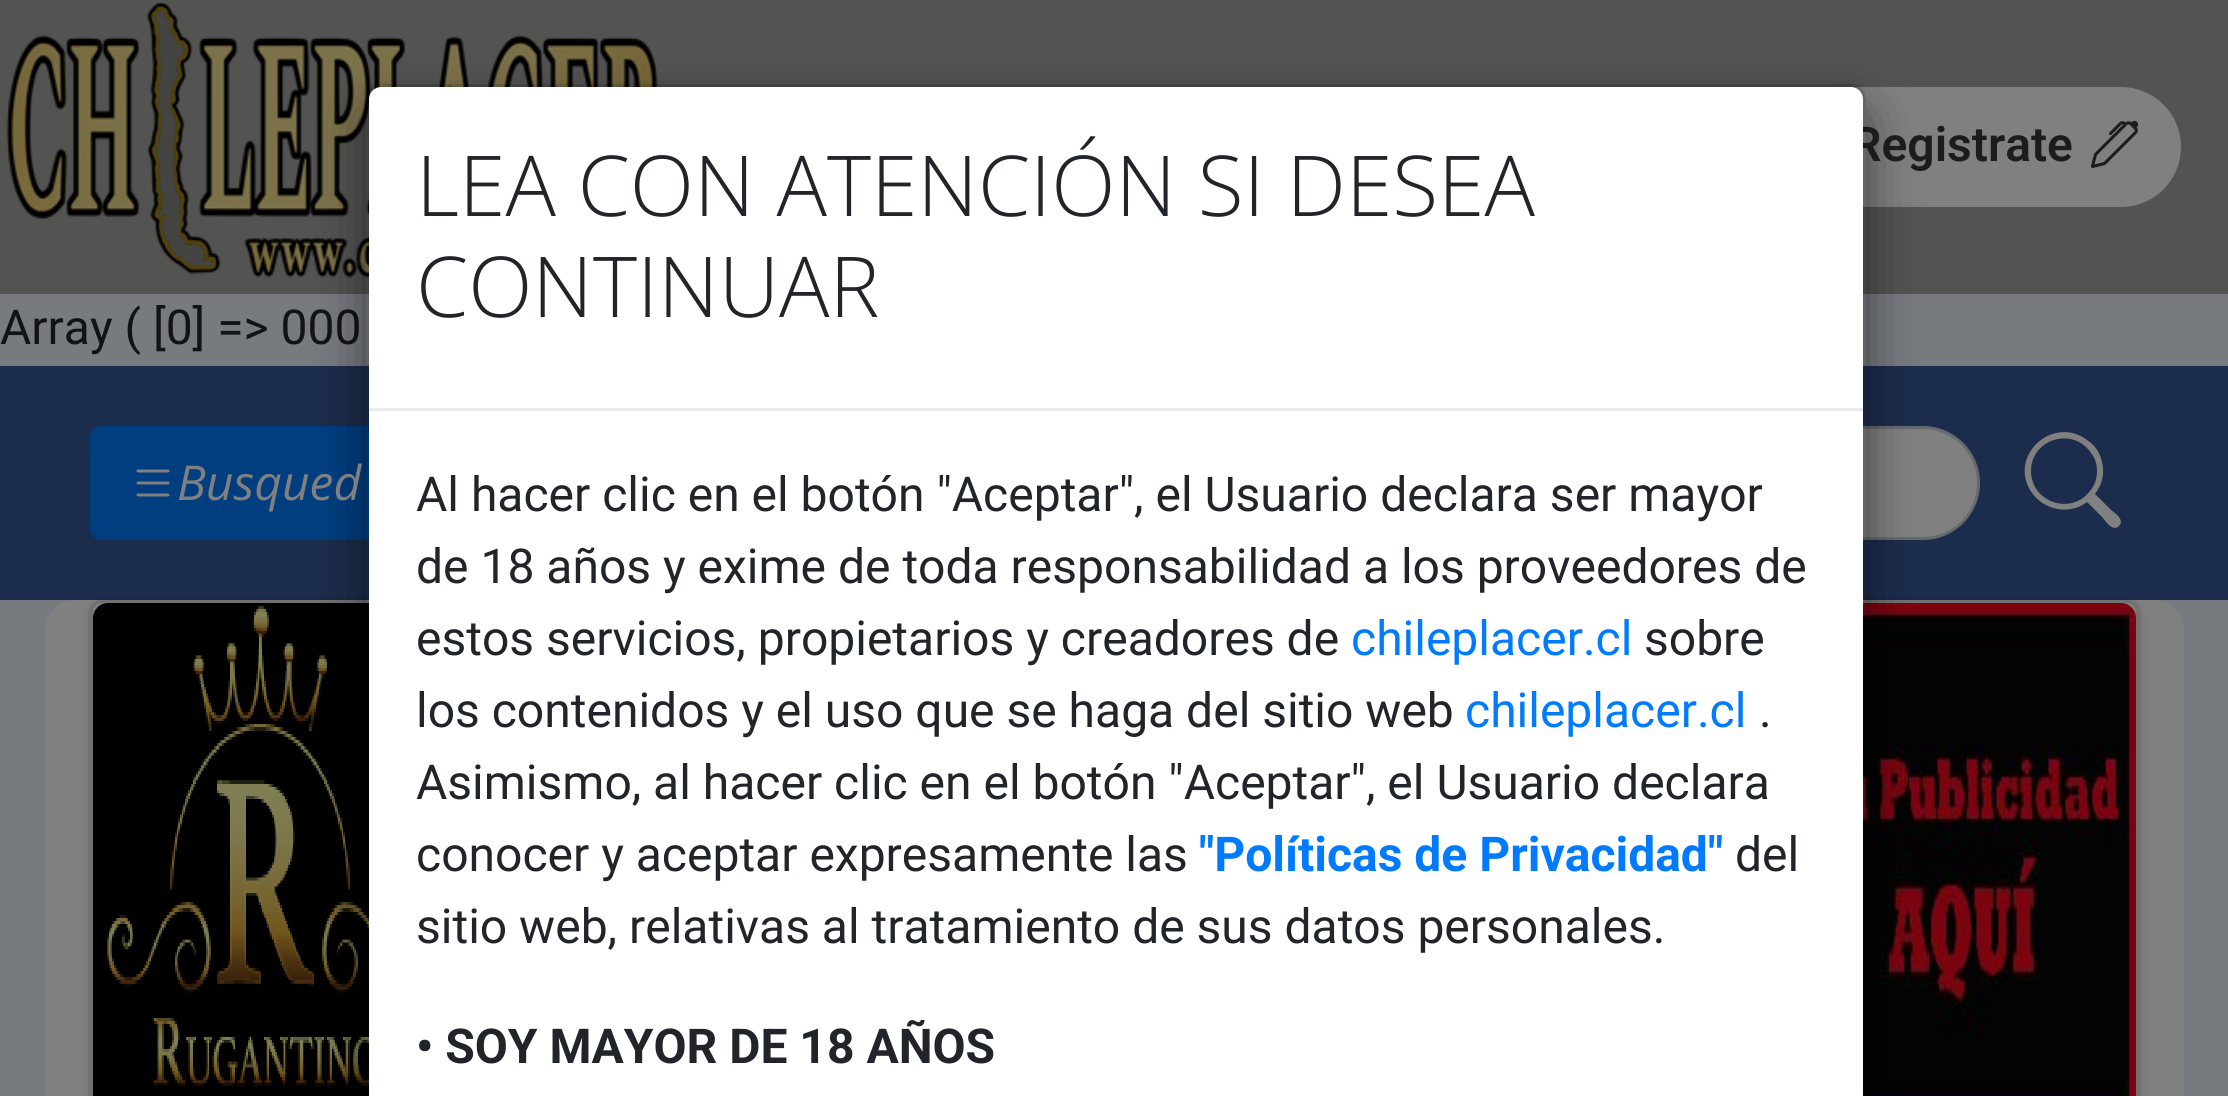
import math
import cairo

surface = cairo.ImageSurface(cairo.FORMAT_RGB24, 2228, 1096)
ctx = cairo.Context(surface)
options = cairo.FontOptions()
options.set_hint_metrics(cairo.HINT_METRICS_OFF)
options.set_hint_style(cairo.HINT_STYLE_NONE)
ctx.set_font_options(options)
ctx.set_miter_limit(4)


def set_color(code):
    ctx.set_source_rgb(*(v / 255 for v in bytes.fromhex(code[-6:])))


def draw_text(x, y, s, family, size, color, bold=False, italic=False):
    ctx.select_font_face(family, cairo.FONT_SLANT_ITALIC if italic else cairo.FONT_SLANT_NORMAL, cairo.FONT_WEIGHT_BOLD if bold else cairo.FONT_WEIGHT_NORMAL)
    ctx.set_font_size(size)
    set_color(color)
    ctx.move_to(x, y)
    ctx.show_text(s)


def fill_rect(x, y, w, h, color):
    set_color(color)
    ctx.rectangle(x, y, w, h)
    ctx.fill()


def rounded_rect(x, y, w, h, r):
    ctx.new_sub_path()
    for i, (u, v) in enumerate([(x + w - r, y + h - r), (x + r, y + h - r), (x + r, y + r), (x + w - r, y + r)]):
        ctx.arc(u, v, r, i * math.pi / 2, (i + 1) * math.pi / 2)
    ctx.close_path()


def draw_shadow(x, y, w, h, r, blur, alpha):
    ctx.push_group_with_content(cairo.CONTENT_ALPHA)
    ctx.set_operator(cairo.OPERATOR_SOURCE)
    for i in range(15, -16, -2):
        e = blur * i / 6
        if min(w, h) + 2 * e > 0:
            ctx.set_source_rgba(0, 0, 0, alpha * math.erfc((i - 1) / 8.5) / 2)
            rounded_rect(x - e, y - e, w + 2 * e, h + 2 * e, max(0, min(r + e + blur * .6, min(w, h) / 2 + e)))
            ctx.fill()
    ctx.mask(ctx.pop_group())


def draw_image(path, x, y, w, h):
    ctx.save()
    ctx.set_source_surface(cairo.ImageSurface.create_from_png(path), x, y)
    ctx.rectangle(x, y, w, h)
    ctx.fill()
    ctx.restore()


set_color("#777a7f")
ctx.paint()
draw_text(0, 344, "Array ( [0] => 000", "Roboto", 48, "#111315")
fill_rect(0, 0, 2228, 294, "#535352")
draw_image("assets/img1.png", 6, 2, 652, 276)
set_color("#808080")
rounded_rect(1791, 87, 390, 120, 60)
ctx.fill()
fill_rect(0, 366, 2228, 234, "#1c2c4c")
set_color("#003e80")
rounded_rect(91.5, 427.5, 555, 111, 10.5)
ctx.fill_preserve()
ctx.set_line_width(3)
ctx.stroke()
set_color("#808080")
rounded_rect(1174.5, 427.5, 804, 111, 55.5)
ctx.fill_preserve()
set_color("#676a6d")
ctx.stroke()
set_color("#808080")
rounded_rect(45, 600, 2139, 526, 30)
ctx.fill()
set_color("#000000")
draw_shadow(90, 603, 342, 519, 12, 4.5, 0.2)
draw_shadow(90, 600, 342, 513, 12, 1.5, 0.12)
set_color("#808080")
rounded_rect(90, 600, 342, 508, 12)
ctx.fill()
rounded_rect(91.5, 601.5, 339, 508, 10.5)
ctx.set_source_rgba(0, 0, 0, 0.12)
ctx.stroke()
draw_image("assets/img4.png", 93, 603, 276, 493)
set_color("#000000")
draw_shadow(1797, 603, 342, 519, 12, 4.5, 0.2)
draw_shadow(1797, 600, 342, 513, 12, 1.5, 0.12)
set_color("#808080")
rounded_rect(1797, 600, 342, 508, 12)
ctx.fill()
rounded_rect(1798.5, 601.5, 339, 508, 10.5)
ctx.set_source_rgba(0, 0, 0, 0.12)
ctx.stroke()
draw_image("assets/img5.png", 1863, 603, 273, 493)
ctx.save()
ctx.set_fill_rule(cairo.FILL_RULE_EVEN_ODD)
ctx.new_path()
ctx.move_to(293, 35)
ctx.line_to(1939, 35)
ctx.line_to(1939, 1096)
ctx.line_to(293, 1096)
ctx.close_path()
ctx.move_to(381, 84)
ctx.line_to(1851, 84)
ctx.curve_to(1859.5, 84, 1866, 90.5, 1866, 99)
ctx.line_to(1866, 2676)
ctx.curve_to(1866, 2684.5, 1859.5, 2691, 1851, 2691)
ctx.line_to(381, 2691)
ctx.curve_to(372.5, 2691, 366, 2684.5, 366, 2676)
ctx.line_to(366, 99)
ctx.curve_to(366, 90.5, 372.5, 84, 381, 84)
ctx.close_path()
ctx.clip()
set_color("#000000")
draw_shadow(366, 108, 1500, 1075, 15, 24, 0.5)
ctx.restore()
draw_text(1851, 161, "Registrate", "Roboto SemiBold", 48, "#1d1c1b")
set_color("#ffffff")
ctx.new_path()
ctx.move_to(381, 87)
ctx.line_to(1851, 87)
ctx.curve_to(1857.5, 87, 1863, 92.5, 1863, 99)
ctx.line_to(1863, 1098)
ctx.line_to(369, 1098)
ctx.line_to(369, 99)
ctx.curve_to(369, 92.5, 374.5, 87, 381, 87)
ctx.close_path()
ctx.fill()
rounded_rect(367.5, 85.5, 1497, 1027, 13.5)
ctx.set_source_rgba(0, 0, 0, 0.2)
ctx.stroke()
fill_rect(369, 408, 1494, 3, "#e9ecef")
draw_text(416, 216, "LEA CON ATENCIÓN SI DESEA", "Open Sans Light", 84, "#212529")
draw_text(416, 317, "CONTINUAR", "Open Sans Light", 84, "#212529")
draw_text(416, 511, "Al hacer clic en el botón \"Aceptar\", el Usuario declara ser mayor", "Roboto", 48, "#212529")
draw_text(416, 583, "de 18 años y exime de toda responsabilidad a los proveedores de", "Roboto", 48, "#212529")
draw_text(416, 655, "estos servicios, propietarios y creadores de", "Roboto", 48, "#212529")
draw_text(1351, 655, "chileplacer.cl", "Roboto", 48, "#007bff")
draw_text(1644, 655, "sobre", "Roboto", 48, "#212529")
draw_text(416, 727, "los contenidos y el uso que se haga del sitio web", "Roboto", 48, "#212529")
draw_text(1465, 727, "chileplacer.cl", "Roboto", 48, "#007bff")
draw_text(1759, 727, ".", "Roboto", 48, "#212529")
draw_text(416, 799, "Asimismo, al hacer clic en el botón \"Aceptar\", el Usuario declara", "Roboto", 48, "#212529")
draw_text(416, 871, "conocer y aceptar expresamente las", "Roboto", 48, "#212529")
draw_text(1199, 871, "\"Políticas de Privacidad\"", "Roboto", 48, "#007bff", bold=True)
draw_text(1735, 871, "del", "Roboto", 48, "#212529")
draw_text(416, 943, "sitio web, relativas al tratamiento de sus datos personales.", "Roboto", 48, "#212529")
draw_text(416, 1063, "• SOY MAYOR DE 18 AÑOS", "Roboto", 48, "#212529", bold=True)
draw_image("assets/img2.png", 2091, 120, 48, 48)
draw_image("assets/img3.png", 136, 469, 34, 28)
draw_text(177, 500, "Busqued", "Open Sans", 48, "#808080", italic=True)
ctx.new_path()
ctx.move_to(2095, 494)
ctx.curve_to(2102, 485, 2105, 473, 2102, 462)
ctx.curve_to(2100, 453, 2095, 445, 2087, 440)
ctx.curve_to(2054, 415, 2009, 454, 2030, 490)
ctx.curve_to(2042, 510, 2069, 516, 2087, 502)
ctx.line_to(2103, 518)
ctx.curve_to(2106, 522, 2113, 532, 2119, 526)
ctx.curve_to(2125, 520, 2115, 513, 2111, 510)
ctx.close_path()
ctx.move_to(2097, 471)
ctx.curve_to(2097, 478, 2095, 485, 2090, 491)
ctx.curve_to(2071, 516, 2031, 502, 2031, 471)
ctx.curve_to(2031, 439, 2073, 426, 2091, 453)
ctx.curve_to(2095, 458, 2097, 464, 2097, 471)
ctx.close_path()
ctx.fill()
surface.write_to_png("output.png")
